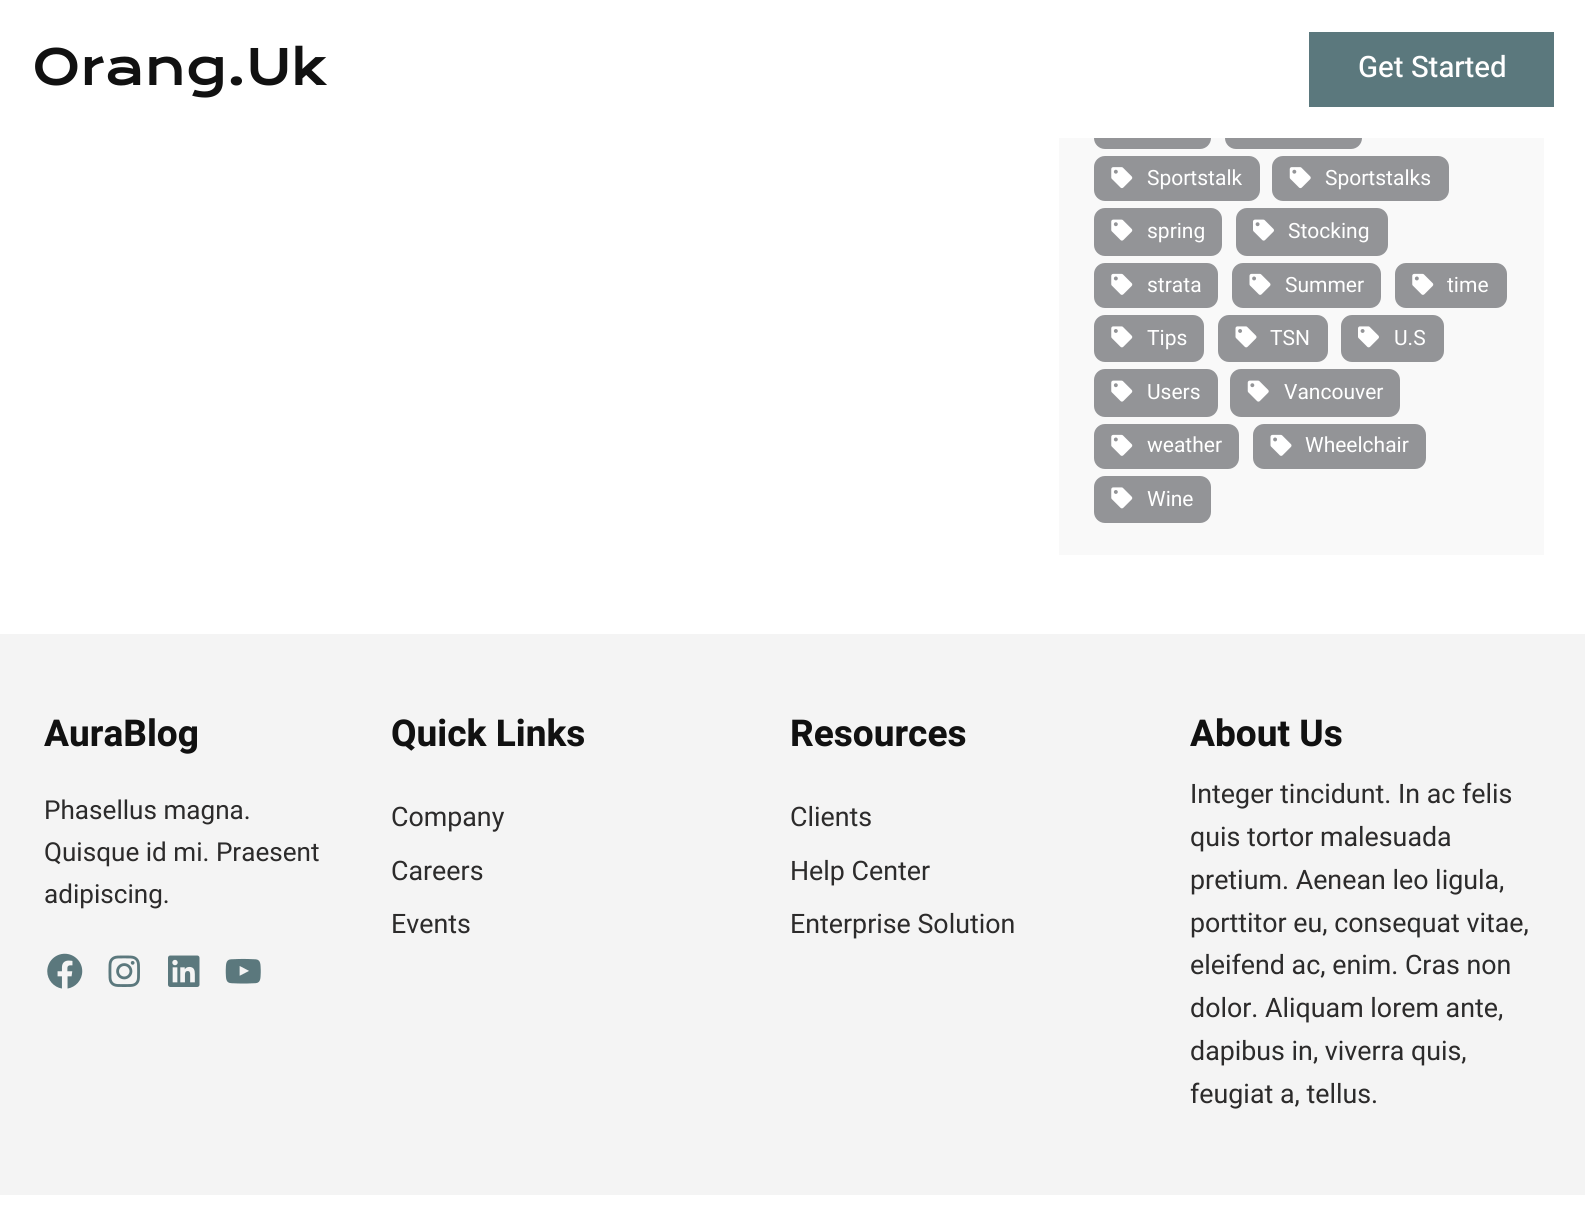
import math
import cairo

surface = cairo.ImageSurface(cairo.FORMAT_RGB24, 1585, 1226)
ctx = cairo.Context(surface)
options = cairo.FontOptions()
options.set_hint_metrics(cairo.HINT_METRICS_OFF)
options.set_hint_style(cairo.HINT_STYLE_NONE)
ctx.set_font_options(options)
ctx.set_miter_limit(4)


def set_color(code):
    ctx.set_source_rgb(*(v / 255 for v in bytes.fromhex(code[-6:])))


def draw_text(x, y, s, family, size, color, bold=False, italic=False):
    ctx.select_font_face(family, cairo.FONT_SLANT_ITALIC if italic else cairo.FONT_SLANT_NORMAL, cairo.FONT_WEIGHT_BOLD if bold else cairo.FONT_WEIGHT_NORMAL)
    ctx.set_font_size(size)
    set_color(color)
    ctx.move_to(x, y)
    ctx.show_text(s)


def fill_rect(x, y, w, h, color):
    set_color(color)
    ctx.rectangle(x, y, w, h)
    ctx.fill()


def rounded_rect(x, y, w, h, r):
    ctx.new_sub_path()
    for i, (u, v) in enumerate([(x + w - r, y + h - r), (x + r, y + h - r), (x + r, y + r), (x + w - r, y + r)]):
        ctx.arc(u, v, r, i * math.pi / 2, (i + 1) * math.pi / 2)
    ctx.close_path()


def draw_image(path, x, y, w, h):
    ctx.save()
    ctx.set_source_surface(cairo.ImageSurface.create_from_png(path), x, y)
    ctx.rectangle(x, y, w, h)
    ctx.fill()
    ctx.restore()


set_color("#ffffff")
ctx.paint()
fill_rect(1059, 138, 485, 417, "#f9f9f9")
set_color("#939497")
rounded_rect(1094, 102, 117, 47, 11)
ctx.fill()
rounded_rect(1225, 102, 137, 47, 11)
ctx.fill()
fill_rect(1094, 102, 268, 36, "#ffffff")
draw_text(32, 85, "Orang.Uk", "Krona One", 48.5, "#111111")
fill_rect(1309, 32, 245, 75, "#5b787d")
draw_text(1358, 77, "Get Started", "Heebo Medium", 29.5, "#ffffff")
set_color("#939497")
rounded_rect(1094, 156, 166, 45, 11)
ctx.fill()
draw_image("assets/img1.png", 1111, 167, 22, 22)
draw_text(1147, 185, "Sportstalk", "Heebo", 21, "#ffffff")
set_color("#939497")
rounded_rect(1272, 156, 177, 45, 11)
ctx.fill()
draw_image("assets/img2.png", 1289, 167, 22, 22)
draw_text(1325, 185, "Sportstalks", "Heebo", 21, "#ffffff")
set_color("#939497")
rounded_rect(1094, 208, 128, 48, 11)
ctx.fill()
draw_image("assets/img3.png", 1111, 219, 22, 22)
draw_text(1147, 238, "spring", "Heebo", 21, "#ffffff")
set_color("#939497")
rounded_rect(1236, 208, 152, 48, 11)
ctx.fill()
draw_image("assets/img4.png", 1253, 219, 21, 22)
draw_text(1288, 238, "Stocking", "Heebo", 21, "#ffffff")
set_color("#939497")
rounded_rect(1094, 263, 124, 45, 11)
ctx.fill()
draw_image("assets/img5.png", 1111, 273, 22, 22)
draw_text(1147, 292, "strata", "Heebo", 21, "#ffffff")
set_color("#939497")
rounded_rect(1232, 263, 149, 45, 11)
ctx.fill()
draw_image("assets/img6.png", 1249, 273, 22, 22)
draw_text(1285, 292, "Summer", "Heebo", 21, "#ffffff")
set_color("#939497")
rounded_rect(1395, 263, 112, 45, 11)
ctx.fill()
draw_image("assets/img5.png", 1412, 273, 22, 22)
draw_text(1447, 292, "time", "Heebo", 21, "#ffffff")
set_color("#939497")
rounded_rect(1094, 315, 110, 47, 11)
ctx.fill()
draw_image("assets/img7.png", 1111, 326, 22, 22)
draw_text(1147, 345, "Tips", "Heebo", 21, "#ffffff")
set_color("#939497")
rounded_rect(1218, 315, 110, 47, 11)
ctx.fill()
draw_image("assets/img8.png", 1235, 326, 22, 22)
draw_text(1270, 345, "TSN", "Heebo", 21, "#ffffff")
set_color("#939497")
rounded_rect(1341, 315, 103, 47, 11)
ctx.fill()
draw_image("assets/img9.png", 1358, 326, 21, 22)
draw_text(1394, 345, "U.S", "Heebo", 21, "#ffffff")
set_color("#939497")
rounded_rect(1094, 369, 124, 48, 11)
ctx.fill()
draw_image("assets/img3.png", 1111, 380, 22, 22)
draw_text(1147, 399, "Users", "Heebo", 21, "#ffffff")
set_color("#939497")
rounded_rect(1230, 369, 170, 48, 11)
ctx.fill()
draw_image("assets/img10.png", 1247, 380, 22, 22)
draw_text(1284, 399, "Vancouver", "Heebo", 21, "#ffffff")
set_color("#939497")
rounded_rect(1094, 424, 145, 45, 11)
ctx.fill()
draw_image("assets/img5.png", 1111, 434, 22, 22)
draw_text(1147, 452, "weather", "Heebo", 21, "#ffffff")
set_color("#939497")
rounded_rect(1253, 424, 173, 45, 11)
ctx.fill()
draw_image("assets/img6.png", 1270, 434, 22, 22)
draw_text(1305, 452, "Wheelchair", "Heebo", 21, "#ffffff")
set_color("#939497")
rounded_rect(1094, 476, 117, 47, 11)
ctx.fill()
draw_image("assets/img7.png", 1111, 487, 22, 22)
draw_text(1147, 506, "Wine", "Heebo", 21, "#ffffff")
fill_rect(0, 634, 1585, 561, "#f4f4f4")
draw_text(44, 746, "AuraBlog", "Heebo", 37, "#111111", bold=True)
draw_text(44, 819, "Phasellus magna.", "Heebo", 26.1, "#2c2b2b")
draw_text(44, 861, "Quisque id mi. Praesent", "Heebo", 26.1, "#2c2b2b")
draw_text(44, 903, "adipiscing.", "Heebo", 26.1, "#2c2b2b")
draw_image("assets/img11.png", 47, 953, 36, 36)
draw_image("assets/img12.png", 108, 955, 32, 32)
draw_image("assets/img13.png", 168, 955, 32, 32)
draw_image("assets/img14.png", 225, 958, 36, 26)
draw_text(391, 746, "Quick Links", "Heebo", 37, "#111111", bold=True)
draw_text(391, 826, "Company", "Heebo", 26.8, "#2c2b2b")
draw_text(391, 880, "Careers", "Heebo", 26.8, "#2c2b2b")
draw_text(391, 933, "Events", "Heebo", 26.8, "#2c2b2b")
draw_text(790, 746, "Resources", "Heebo", 37, "#111111", bold=True)
draw_text(790, 826, "Clients", "Heebo", 26.8, "#2c2b2b")
draw_text(790, 880, "Help Center", "Heebo", 26.8, "#2c2b2b")
draw_text(790, 933, "Enterprise Solution", "Heebo", 26.8, "#2c2b2b")
draw_text(1190, 746, "About Us", "Heebo", 37, "#111111", bold=True)
draw_text(1190, 803, "Integer tincidunt. In ac felis", "Heebo", 26.8, "#2c2b2b")
draw_text(1190, 846, "quis tortor malesuada", "Heebo", 26.8, "#2c2b2b")
draw_text(1190, 889, "pretium. Aenean leo ligula,", "Heebo", 26.8, "#2c2b2b")
draw_text(1190, 932, "porttitor eu, consequat vitae,", "Heebo", 26.8, "#2c2b2b")
draw_text(1190, 974, "eleifend ac, enim. Cras non", "Heebo", 26.8, "#2c2b2b")
draw_text(1190, 1017, "dolor. Aliquam lorem ante,", "Heebo", 26.8, "#2c2b2b")
draw_text(1190, 1060, "dapibus in, viverra quis,", "Heebo", 26.8, "#2c2b2b")
draw_text(1190, 1103, "feugiat a, tellus.", "Heebo", 26.8, "#2c2b2b")
surface.write_to_png("output.png")
